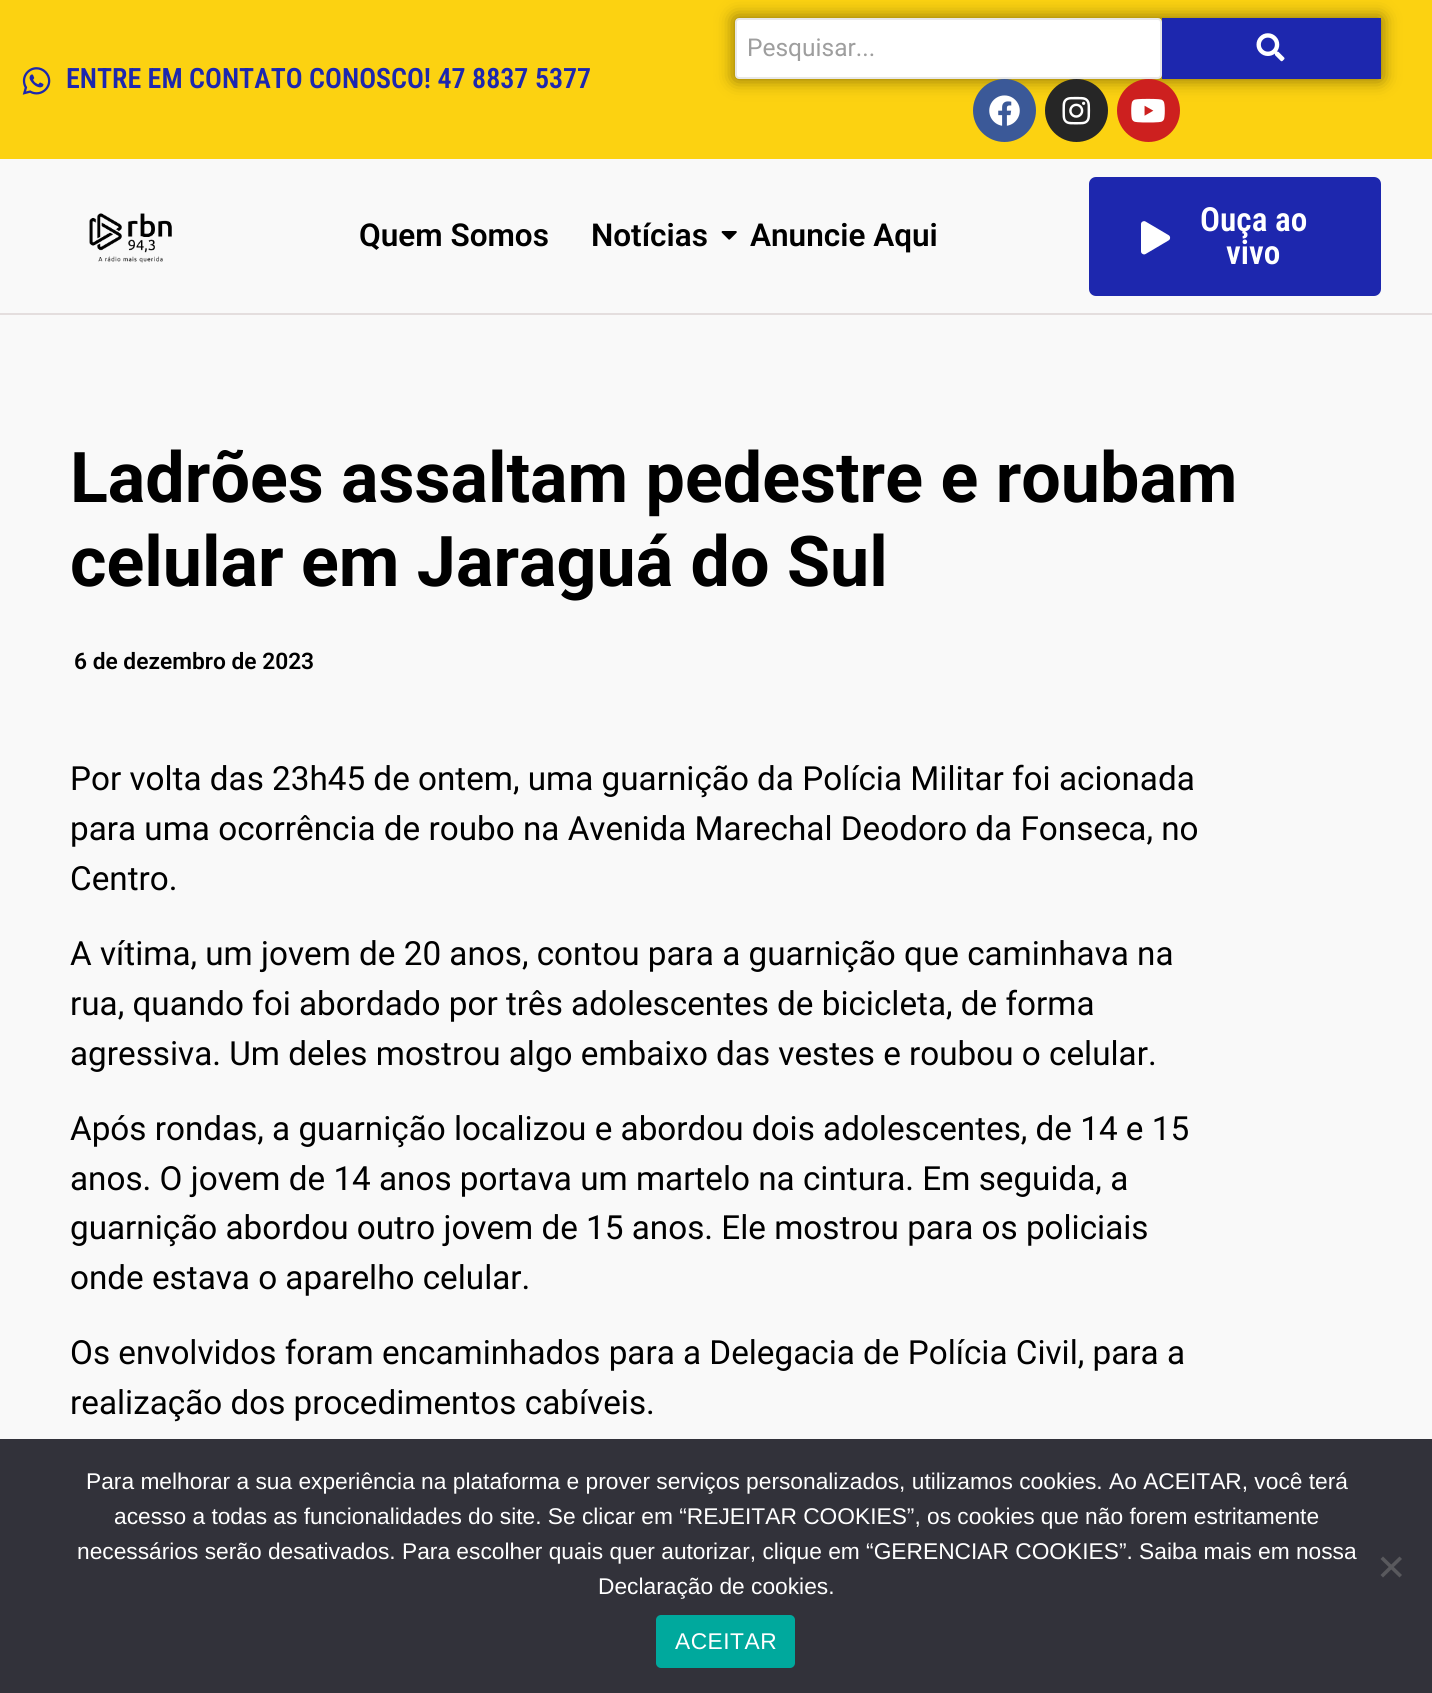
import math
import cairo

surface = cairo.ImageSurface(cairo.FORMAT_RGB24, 1432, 1693)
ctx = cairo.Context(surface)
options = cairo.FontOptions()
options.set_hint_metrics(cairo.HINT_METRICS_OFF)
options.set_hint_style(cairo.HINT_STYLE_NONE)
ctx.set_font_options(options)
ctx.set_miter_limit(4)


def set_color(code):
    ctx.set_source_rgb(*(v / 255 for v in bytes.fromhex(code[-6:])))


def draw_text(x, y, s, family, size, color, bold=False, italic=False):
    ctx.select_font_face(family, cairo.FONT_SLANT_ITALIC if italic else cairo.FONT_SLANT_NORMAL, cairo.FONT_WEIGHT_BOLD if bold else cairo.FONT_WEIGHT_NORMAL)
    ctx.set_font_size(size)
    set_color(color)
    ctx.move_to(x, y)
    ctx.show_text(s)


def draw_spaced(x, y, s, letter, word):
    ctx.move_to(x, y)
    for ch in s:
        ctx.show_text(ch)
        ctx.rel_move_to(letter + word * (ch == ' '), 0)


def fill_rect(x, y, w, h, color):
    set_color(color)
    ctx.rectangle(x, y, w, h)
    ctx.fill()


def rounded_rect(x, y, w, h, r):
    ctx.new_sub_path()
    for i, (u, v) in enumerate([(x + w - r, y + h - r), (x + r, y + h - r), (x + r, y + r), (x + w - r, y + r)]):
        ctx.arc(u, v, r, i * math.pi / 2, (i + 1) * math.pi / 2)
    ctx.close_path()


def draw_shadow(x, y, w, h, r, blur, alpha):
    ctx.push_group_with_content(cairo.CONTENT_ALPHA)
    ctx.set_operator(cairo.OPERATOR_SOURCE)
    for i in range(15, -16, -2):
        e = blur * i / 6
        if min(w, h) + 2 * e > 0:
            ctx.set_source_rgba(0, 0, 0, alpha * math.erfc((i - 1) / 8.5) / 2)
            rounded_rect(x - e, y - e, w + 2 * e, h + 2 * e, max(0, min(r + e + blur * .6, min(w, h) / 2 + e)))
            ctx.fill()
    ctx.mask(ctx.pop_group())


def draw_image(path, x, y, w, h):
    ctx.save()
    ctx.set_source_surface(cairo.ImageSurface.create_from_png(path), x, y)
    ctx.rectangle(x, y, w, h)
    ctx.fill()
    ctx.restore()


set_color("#f9f9f9")
ctx.paint()
fill_rect(0, 0, 1432, 159, "#fcd211")
set_color("#000000")
draw_shadow(735, 18, 646, 61, 0, 9, 0.5)
set_color("#ffffff")
rounded_rect(736, 19, 425, 59, 3)
ctx.fill_preserve()
set_color("#e8e8e8")
ctx.stroke()
draw_text(747, 56, "Pesquisar...", "Roboto", 24.5, "#9e9e9e")
fill_rect(1162, 18, 219, 61, "#1d27ae")
draw_image("assets/img1.png", 1256, 33, 29, 29)
set_color("#3b5998")
ctx.arc(1004.5, 110.5, 31.5, 0, 2 * math.pi)
ctx.fill()
draw_image("assets/img2.png", 989, 95, 31, 31)
set_color("#262626")
ctx.arc(1076.5, 110.5, 31.5, 0, 2 * math.pi)
ctx.fill()
draw_image("assets/img3.png", 1062, 96, 29, 29)
set_color("#cd201f")
ctx.arc(1148.5, 110.5, 31.5, 0, 2 * math.pi)
ctx.fill()
draw_image("assets/img4.png", 1131, 98, 34, 25)
draw_image("assets/img5.png", 22, 67, 29, 28)
draw_text(66, 88, "ENTRE EM CONTATO CONOSCO! 47 8837 5377", "Roboto Condensed SemiBold", 28, "#1d27ae")
fill_rect(0, 313, 1432, 2, "#e4dede")
draw_image("assets/img6.png", 89, 213, 83, 50)
draw_text(359, 246, "Quem Somos", "Roboto SemiBold", 31.5, "#000000")
draw_text(591, 246, "Notícias", "Roboto SemiBold", 31.5, "#000000")
draw_image("assets/img7.png", 721, 231, 16, 9)
draw_text(750, 246, "Anuncie Aqui", "Roboto SemiBold", 31.5, "#000000")
set_color("#1d27ae")
rounded_rect(1089, 177, 292, 119, 7)
ctx.fill()
draw_image("assets/img8.png", 1141, 221, 30, 34)
draw_text(1200, 231, "Ouça ao", "Roboto Condensed SemiBold", 33.25, "#ffffff")
draw_text(1226, 264, "vivo", "Roboto Condensed SemiBold", 33.25, "#ffffff")
draw_text(70, 502, "Ladrões assaltam pedestre e roubam", "Roboto", 70, "#000000", bold=True)
draw_text(70, 586, "celular em Jaraguá do Sul", "Roboto", 70, "#000000", bold=True)
draw_text(74, 669, "6 de dezembro de 2023", "Roboto SemiBold", 22.75, "#000000")
draw_text(70, 790, "Por volta das 23h45 de ontem, uma guarnição da Polícia Militar foi acionada", "Roboto", 33.25, "#000000")
draw_text(70, 840, "para uma ocorrência de roubo na Avenida Marechal Deodoro da Fonseca, no", "Roboto", 33.25, "#000000")
draw_text(70, 890, "Centro.", "Roboto", 33.25, "#000000")
draw_text(70, 965, "A vítima, um jovem de 20 anos, contou para a guarnição que caminhava na", "Roboto", 33.25, "#000000")
draw_text(70, 1015, "rua, quando foi abordado por três adolescentes de bicicleta, de forma", "Roboto", 33.25, "#000000")
draw_text(70, 1065, "agressiva. Um deles mostrou algo embaixo das vestes e roubou o celular.", "Roboto", 33.25, "#000000")
draw_text(70, 1140, "Após rondas, a guarnição localizou e abordou dois adolescentes, de 14 e 15", "Roboto", 33.25, "#000000")
draw_text(70, 1190, "anos. O jovem de 14 anos portava um martelo na cintura. Em seguida, a", "Roboto", 33.25, "#000000")
draw_text(70, 1239, "guarnição abordou outro jovem de 15 anos. Ele mostrou para os policiais", "Roboto", 33.25, "#000000")
draw_text(70, 1289, "onde estava o aparelho celular.", "Roboto", 33.25, "#000000")
draw_text(70, 1364, "Os envolvidos foram encaminhados para a Delegacia de Polícia Civil, para a", "Roboto", 33.25, "#000000")
draw_text(70, 1414, "realização dos procedimentos cabíveis.", "Roboto", 33.25, "#000000")
fill_rect(0, 1439, 1432, 254, "#32323a")
draw_text(86, 1489, "Para melhorar a sua experiência na plataforma e prover serviços personalizados, utilizamos cookies. Ao ACEITAR, você terá", "Liberation Sans", 22.75, "#ffffff")
draw_text(114, 1524, "acesso a todas as funcionalidades do site. Se clicar em “REJEITAR COOKIES”, os cookies que não forem estritamente", "Liberation Sans", 22.75, "#ffffff")
draw_text(77, 1559, "necessários serão desativados. Para escolher quais quer autorizar, clique em “GERENCIAR COOKIES”. Saiba mais em nossa", "Liberation Sans", 22.75, "#ffffff")
draw_text(598, 1594, "Declaração de cookies.", "Liberation Sans", 22.75, "#ffffff")
set_color("#59595d")
ctx.new_path()
ctx.move_to(1399.5, 1556.5)
ctx.line_to(1402, 1559)
ctx.line_to(1383, 1577.5)
ctx.line_to(1380.5, 1575)
ctx.close_path()
ctx.fill()
ctx.new_path()
ctx.move_to(1380.5, 1559)
ctx.line_to(1383, 1556.5)
ctx.line_to(1402, 1575)
ctx.line_to(1399.5, 1577.5)
ctx.close_path()
ctx.fill()
set_color("#00a99d")
rounded_rect(656, 1615, 139, 53, 5)
ctx.fill()
set_color("#ffffff")
draw_spaced(675, 1649, "ACEITAR", 0.5, 0)
surface.write_to_png("output.png")
